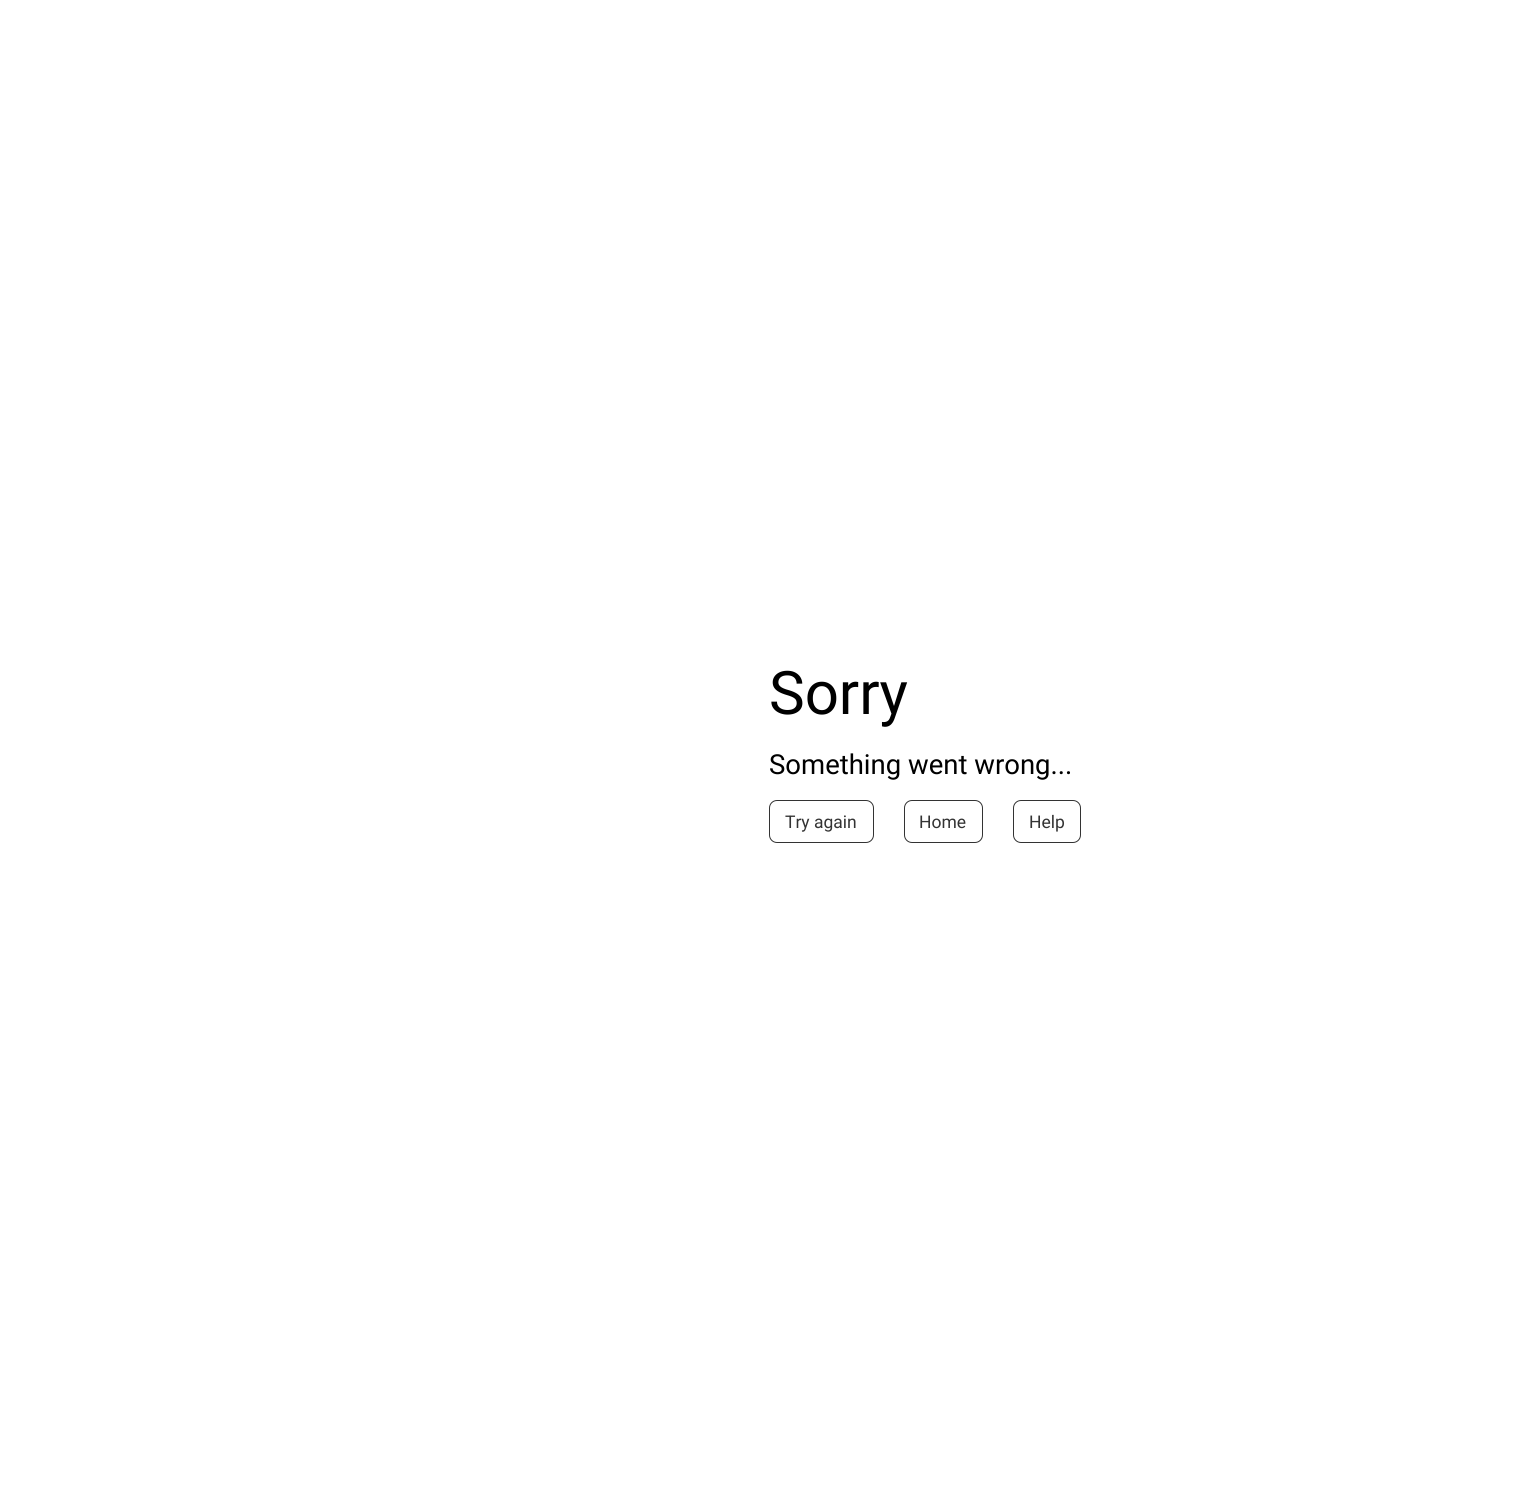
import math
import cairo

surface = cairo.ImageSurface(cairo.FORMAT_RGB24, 1530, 1500)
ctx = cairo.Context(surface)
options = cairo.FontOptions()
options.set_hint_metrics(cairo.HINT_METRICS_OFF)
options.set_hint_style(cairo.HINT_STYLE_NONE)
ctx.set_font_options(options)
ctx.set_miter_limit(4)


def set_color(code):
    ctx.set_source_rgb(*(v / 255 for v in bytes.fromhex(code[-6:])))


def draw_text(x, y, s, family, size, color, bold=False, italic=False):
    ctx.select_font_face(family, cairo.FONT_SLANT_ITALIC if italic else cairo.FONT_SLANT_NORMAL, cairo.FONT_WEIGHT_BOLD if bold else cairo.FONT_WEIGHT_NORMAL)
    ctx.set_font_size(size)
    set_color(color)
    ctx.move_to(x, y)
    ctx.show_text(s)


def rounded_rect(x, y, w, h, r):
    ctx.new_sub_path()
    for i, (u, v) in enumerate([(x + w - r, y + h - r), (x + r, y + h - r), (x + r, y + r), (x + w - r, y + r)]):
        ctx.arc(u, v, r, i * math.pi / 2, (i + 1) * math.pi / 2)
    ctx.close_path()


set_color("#ffffff")
ctx.paint()
draw_text(769, 714, "Sorry", "Roboto", 60, "#000000")
draw_text(769, 774, "Something went wrong...", "Roboto", 27.5, "#000000")
rounded_rect(769.5, 800.5, 104, 42, 7.5)
set_color("#333333")
ctx.set_line_width(1)
ctx.stroke()
draw_text(785, 828, "Try again", "Roboto", 17.5, "#333333")
rounded_rect(904.5, 800.5, 78, 42, 7.5)
ctx.stroke()
draw_text(919, 828, "Home", "Roboto", 17.5, "#333333")
rounded_rect(1013.5, 800.5, 67, 42, 7.5)
ctx.stroke()
draw_text(1029, 828, "Help", "Roboto", 17.5, "#333333")
surface.write_to_png("output.png")
